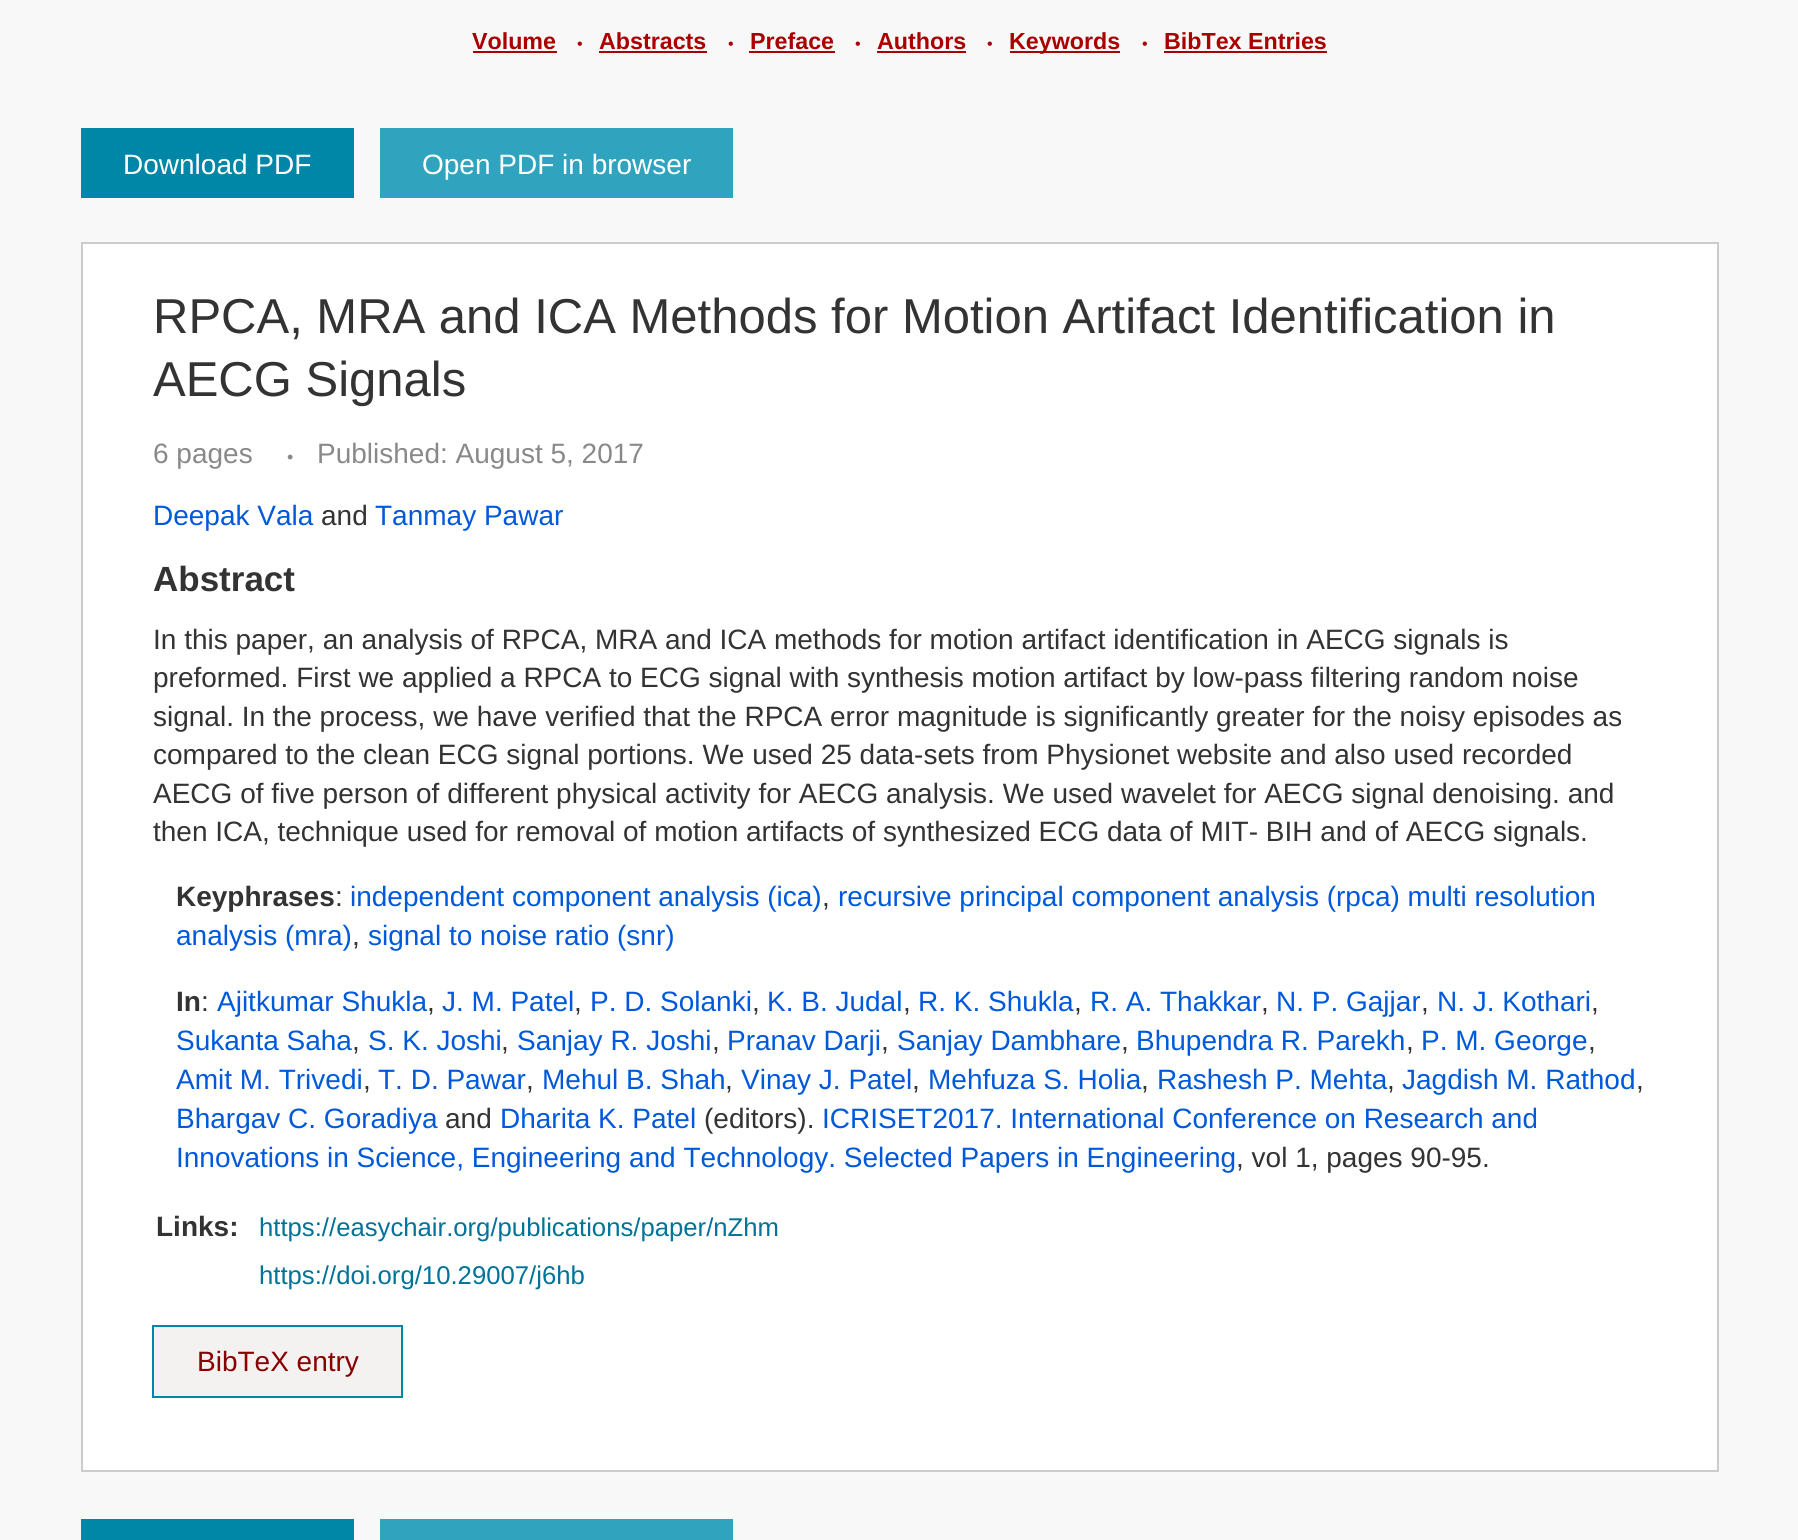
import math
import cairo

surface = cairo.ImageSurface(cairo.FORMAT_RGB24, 1798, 1540)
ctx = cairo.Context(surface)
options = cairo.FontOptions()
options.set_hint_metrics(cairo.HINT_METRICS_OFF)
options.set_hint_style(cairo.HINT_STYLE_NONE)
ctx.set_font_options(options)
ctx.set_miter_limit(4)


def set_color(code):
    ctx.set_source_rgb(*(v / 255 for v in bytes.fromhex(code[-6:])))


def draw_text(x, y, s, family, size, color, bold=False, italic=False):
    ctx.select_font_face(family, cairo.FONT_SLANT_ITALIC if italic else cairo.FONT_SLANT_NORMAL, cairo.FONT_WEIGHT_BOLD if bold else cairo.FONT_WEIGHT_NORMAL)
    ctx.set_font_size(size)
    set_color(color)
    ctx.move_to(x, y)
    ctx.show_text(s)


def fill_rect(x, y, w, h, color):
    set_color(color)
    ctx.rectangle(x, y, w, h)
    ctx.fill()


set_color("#f8f8f8")
ctx.paint()
draw_text(472, 49, "Volume", "Liberation Sans", 23.25, "#aa0000", bold=True)
fill_rect(473, 51, 84, 2, "#aa0000")
draw_text(577, 49, "•", "Liberation Sans", 16, "#aa0000")
draw_text(599, 49, "Abstracts", "Liberation Sans", 23.25, "#aa0000", bold=True)
fill_rect(599, 51, 108, 2, "#aa0000")
draw_text(728, 49, "•", "Liberation Sans", 16, "#aa0000")
draw_text(750, 49, "Preface", "Liberation Sans", 23.25, "#aa0000", bold=True)
fill_rect(749, 51, 86, 2, "#aa0000")
draw_text(855, 49, "•", "Liberation Sans", 16, "#aa0000")
draw_text(877, 49, "Authors", "Liberation Sans", 23.25, "#aa0000", bold=True)
fill_rect(877, 51, 89, 2, "#aa0000")
draw_text(987, 49, "•", "Liberation Sans", 16, "#aa0000")
fill_rect(1010, 51, 110, 2, "#aa0000")
draw_text(1009, 49, "Keywords", "Liberation Sans", 23.25, "#aa0000", bold=True)
draw_text(1142, 49, "•", "Liberation Sans", 16, "#aa0000")
draw_text(1164, 49, "BibTex Entries", "Liberation Sans", 23.25, "#aa0000", bold=True)
fill_rect(1164, 51, 163, 2, "#aa0000")
fill_rect(81, 128, 273, 70, "#0086a6")
draw_text(123, 174, "Download PDF", "Liberation Sans", 28, "#ffffff")
fill_rect(380, 128, 353, 70, "#30a4bf")
draw_text(422, 174, "Open PDF in browser", "Liberation Sans", 28, "#ffffff")
ctx.rectangle(82, 243, 1636, 1228)
ctx.fill_preserve()
set_color("#cccccc")
ctx.stroke()
draw_text(153, 333, "RPCA, MRA and ICA Methods for Motion Artifact Identification in", "Liberation Sans", 49, "#333333")
draw_text(153, 396, "AECG Signals", "Liberation Sans", 49, "#333333")
draw_text(153, 463, "6 pages", "Liberation Sans", 28, "#898989")
draw_text(287, 463, "•", "Liberation Sans", 18, "#898989")
draw_text(317, 463, "Published: August 5, 2017", "Liberation Sans", 28, "#898989")
draw_text(153, 525, "Deepak Vala", "Liberation Sans", 28, "#0059db")
draw_text(321, 525, "and", "Liberation Sans", 28, "#333333")
draw_text(375, 525, "Tanmay Pawar", "Liberation Sans", 28, "#0059db")
draw_text(153, 591, "Abstract", "Liberation Sans", 35, "#333333", bold=True)
draw_text(153, 649, "In this paper, an analysis of RPCA, MRA and ICA methods for motion artifact identification in AECG signals is", "Liberation Sans", 28, "#333333")
draw_text(153, 687, "preformed. First we applied a RPCA to ECG signal with synthesis motion artifact by low-pass filtering random noise", "Liberation Sans", 28, "#333333")
draw_text(153, 726, "signal. In the process, we have verified that the RPCA error magnitude is significantly greater for the noisy episodes as", "Liberation Sans", 28, "#333333")
draw_text(153, 764, "compared to the clean ECG signal portions. We used 25 data-sets from Physionet website and also used recorded", "Liberation Sans", 28, "#333333")
draw_text(153, 803, "AECG of five person of different physical activity for AECG analysis. We used wavelet for AECG signal denoising. and", "Liberation Sans", 28, "#333333")
draw_text(153, 841, "then ICA, technique used for removal of motion artifacts of synthesized ECG data of MIT- BIH and of AECG signals.", "Liberation Sans", 28, "#333333")
draw_text(176, 906, "Keyphrases", "Liberation Sans", 28, "#333333", bold=True)
draw_text(335, 906, ":", "Liberation Sans", 28, "#333333")
draw_text(350, 906, "independent component analysis (ica)", "Liberation Sans", 28, "#0059db")
draw_text(822, 906, ",", "Liberation Sans", 28, "#333333")
draw_text(838, 906, "recursive principal component analysis (rpca) multi resolution", "Liberation Sans", 28, "#0059db")
draw_text(176, 945, "analysis (mra)", "Liberation Sans", 28, "#0059db")
draw_text(352, 945, ",", "Liberation Sans", 28, "#333333")
draw_text(368, 945, "signal to noise ratio (snr)", "Liberation Sans", 28, "#0059db")
draw_text(176, 1011, "In", "Liberation Sans", 28, "#333333", bold=True)
draw_text(201, 1011, ":", "Liberation Sans", 28, "#333333")
draw_text(217, 1011, "Ajitkumar Shukla", "Liberation Sans", 28, "#0059db")
draw_text(427, 1011, ",", "Liberation Sans", 28, "#333333")
draw_text(442, 1011, "J. M. Patel", "Liberation Sans", 28, "#0059db")
draw_text(574, 1011, ",", "Liberation Sans", 28, "#333333")
draw_text(590, 1011, "P. D. Solanki", "Liberation Sans", 28, "#0059db")
draw_text(752, 1011, ",", "Liberation Sans", 28, "#333333")
draw_text(767, 1011, "K. B. Judal", "Liberation Sans", 28, "#0059db")
draw_text(903, 1011, ",", "Liberation Sans", 28, "#333333")
draw_text(918, 1011, "R. K. Shukla", "Liberation Sans", 28, "#0059db")
draw_text(1074, 1011, ",", "Liberation Sans", 28, "#333333")
draw_text(1090, 1011, "R. A. Thakkar", "Liberation Sans", 28, "#0059db")
draw_text(1261, 1011, ",", "Liberation Sans", 28, "#333333")
draw_text(1276, 1011, "N. P. Gajjar", "Liberation Sans", 28, "#0059db")
draw_text(1421, 1011, ",", "Liberation Sans", 28, "#333333")
draw_text(1437, 1011, "N. J. Kothari", "Liberation Sans", 28, "#0059db")
draw_text(1591, 1011, ",", "Liberation Sans", 28, "#333333")
draw_text(176, 1050, "Sukanta Saha", "Liberation Sans", 28, "#0059db")
draw_text(352, 1050, ",", "Liberation Sans", 28, "#333333")
draw_text(368, 1050, "S. K. Joshi", "Liberation Sans", 28, "#0059db")
draw_text(501, 1050, ",", "Liberation Sans", 28, "#333333")
draw_text(517, 1050, "Sanjay R. Joshi", "Liberation Sans", 28, "#0059db")
draw_text(712, 1050, ",", "Liberation Sans", 28, "#333333")
draw_text(727, 1050, "Pranav Darji", "Liberation Sans", 28, "#0059db")
draw_text(881, 1050, ",", "Liberation Sans", 28, "#333333")
draw_text(897, 1050, "Sanjay Dambhare", "Liberation Sans", 28, "#0059db")
draw_text(1121, 1050, ",", "Liberation Sans", 28, "#333333")
draw_text(1136, 1050, "Bhupendra R. Parekh", "Liberation Sans", 28, "#0059db")
draw_text(1406, 1050, ",", "Liberation Sans", 28, "#333333")
draw_text(1421, 1050, "P. M. George", "Liberation Sans", 28, "#0059db")
draw_text(1588, 1050, ",", "Liberation Sans", 28, "#333333")
draw_text(176, 1089, "Amit M. Trivedi", "Liberation Sans", 28, "#0059db")
draw_text(363, 1089, ",", "Liberation Sans", 28, "#333333")
draw_text(378, 1089, "T. D. Pawar", "Liberation Sans", 28, "#0059db")
draw_text(526, 1089, ",", "Liberation Sans", 28, "#333333")
draw_text(542, 1089, "Mehul B. Shah", "Liberation Sans", 28, "#0059db")
draw_text(725, 1089, ",", "Liberation Sans", 28, "#333333")
draw_text(741, 1089, "Vinay J. Patel", "Liberation Sans", 28, "#0059db")
draw_text(912, 1089, ",", "Liberation Sans", 28, "#333333")
draw_text(928, 1089, "Mehfuza S. Holia", "Liberation Sans", 28, "#0059db")
draw_text(1141, 1089, ",", "Liberation Sans", 28, "#333333")
draw_text(1157, 1089, "Rashesh P. Mehta", "Liberation Sans", 28, "#0059db")
draw_text(1387, 1089, ",", "Liberation Sans", 28, "#333333")
draw_text(1402, 1089, "Jagdish M. Rathod", "Liberation Sans", 28, "#0059db")
draw_text(1636, 1089, ",", "Liberation Sans", 28, "#333333")
draw_text(176, 1128, "Bhargav C. Goradiya", "Liberation Sans", 28, "#0059db")
draw_text(445, 1128, "and", "Liberation Sans", 28, "#333333")
draw_text(500, 1128, "Dharita K. Patel", "Liberation Sans", 28, "#0059db")
draw_text(704, 1128, "(editors).", "Liberation Sans", 28, "#333333")
draw_text(822, 1128, "ICRISET2017. International Conference on Research and", "Liberation Sans", 28, "#0059db")
draw_text(176, 1167, "Innovations in Science, Engineering and Technology. Selected Papers in Engineering", "Liberation Sans", 28, "#0059db")
draw_text(1236, 1167, ", vol 1, pages 90-95.", "Liberation Sans", 28, "#333333")
draw_text(156, 1236, "Links:", "Liberation Sans", 28, "#333333", bold=True)
draw_text(259, 1236, "https://easychair.org/publications/paper/nZhm", "Liberation Sans", 25.7, "#007398")
draw_text(259, 1284, "https://doi.org/10.29007/j6hb", "Liberation Sans", 25.7, "#007398")
set_color("#f3f2f1")
ctx.rectangle(153, 1326, 249, 71)
ctx.fill_preserve()
set_color("#0086a6")
ctx.stroke()
draw_text(197, 1371, "BibTeX entry", "Liberation Sans", 28, "#880000")
fill_rect(81, 1519, 273, 21, "#0086a6")
fill_rect(380, 1519, 353, 21, "#30a4bf")
surface.write_to_png("output.png")
